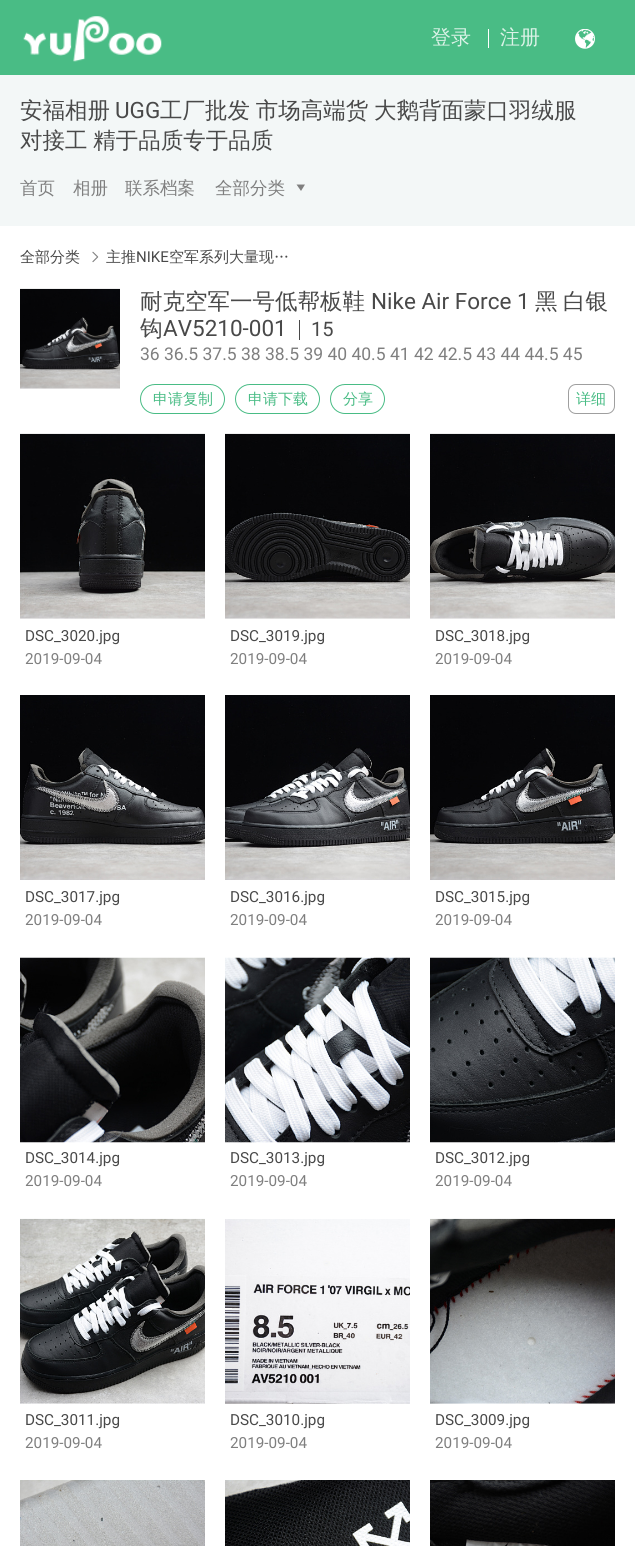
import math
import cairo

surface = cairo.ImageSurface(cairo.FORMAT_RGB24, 635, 1546)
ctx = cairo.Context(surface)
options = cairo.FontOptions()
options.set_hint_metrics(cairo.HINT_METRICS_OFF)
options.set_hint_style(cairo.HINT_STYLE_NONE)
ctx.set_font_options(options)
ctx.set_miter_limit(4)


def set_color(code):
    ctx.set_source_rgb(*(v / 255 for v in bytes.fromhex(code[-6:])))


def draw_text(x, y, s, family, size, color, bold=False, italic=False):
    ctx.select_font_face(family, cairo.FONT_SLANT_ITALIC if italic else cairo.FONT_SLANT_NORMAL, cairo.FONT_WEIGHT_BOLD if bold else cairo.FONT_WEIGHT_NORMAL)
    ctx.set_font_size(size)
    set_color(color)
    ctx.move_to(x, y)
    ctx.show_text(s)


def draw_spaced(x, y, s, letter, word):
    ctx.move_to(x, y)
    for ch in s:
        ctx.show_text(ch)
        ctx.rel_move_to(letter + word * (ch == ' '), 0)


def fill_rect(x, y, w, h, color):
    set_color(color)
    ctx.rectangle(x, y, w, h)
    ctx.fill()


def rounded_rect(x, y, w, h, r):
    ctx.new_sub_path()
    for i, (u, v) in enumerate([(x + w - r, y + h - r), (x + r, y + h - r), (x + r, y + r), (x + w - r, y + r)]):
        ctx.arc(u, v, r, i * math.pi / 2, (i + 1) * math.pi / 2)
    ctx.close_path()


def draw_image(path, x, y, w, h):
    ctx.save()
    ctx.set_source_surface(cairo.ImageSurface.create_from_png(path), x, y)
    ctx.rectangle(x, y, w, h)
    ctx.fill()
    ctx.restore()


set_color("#ffffff")
ctx.paint()
fill_rect(0, 0, 635, 75, "#49bc85")
draw_image("assets/img1.png", 23, 16, 139, 46)
draw_text(431, 44, "登录", "WenQuanYi Zen Hei Medium", 20, "#dbf2e7")
fill_rect(488, 29, 1, 19, "#ffffff")
draw_text(500, 44, "注册", "WenQuanYi Zen Hei Medium", 20, "#dbf2e7")
draw_image("assets/img2.png", 575, 29, 20, 20)
fill_rect(0, 75, 635, 151, "#f3f7f7")
draw_text(20, 118, "安福相册", "WenQuanYi Zen Hei Medium", 22.5, "#494949")
draw_text(115, 118, "UGG", "Roboto", 22.5, "#494949")
ctx.select_font_face("WenQuanYi Zen Hei Medium")
draw_spaced(160, 118, "工厂批发 市场高端货 大鹅背面蒙口羽绒服", 0, -1)
draw_spaced(20, 148, "对接工 精于品质专于品质", 0, -1)
draw_text(20, 194, "首页", "WenQuanYi Zen Hei Medium", 17.5, "#7f7f7f")
draw_text(73, 194, "相册", "WenQuanYi Zen Hei Medium", 17.5, "#7f7f7f")
draw_text(125, 194, "联系档案", "WenQuanYi Zen Hei Medium", 17.5, "#7f7f7f")
draw_text(215, 194, "全部分类", "WenQuanYi Zen Hei Medium", 17.5, "#7f7f7f")
ctx.new_path()
ctx.move_to(301, 191)
ctx.line_to(296.5, 184.5)
ctx.line_to(305, 184.5)
ctx.close_path()
ctx.fill()
draw_text(20, 262, "全部分类", "WenQuanYi Zen Hei Medium", 15, "#494949")
draw_image("assets/img3.png", 92, 251, 7, 12)
draw_text(106, 262, "主推", "WenQuanYi Zen Hei Medium", 15, "#494949")
draw_text(136, 262, "NIKE", "Roboto", 15, "#494949")
draw_text(169, 262, "空军系列大量现…", "WenQuanYi Zen Hei Medium", 15, "#494949")
draw_image("assets/img4.png", 20, 288, 100, 101)
draw_text(140, 309, "耐克空军一号低帮板鞋", "WenQuanYi Zen Hei Medium", 22.5, "#494949")
draw_text(371, 309, "Nike Air Force 1", "Roboto", 22.5, "#494949")
draw_text(535, 309, "黑", "WenQuanYi Zen Hei Medium", 22.5, "#494949")
draw_text(563, 309, "白银", "WenQuanYi Zen Hei Medium", 22.5, "#494949")
draw_text(140, 336, "钩", "WenQuanYi Zen Hei Medium", 22.5, "#494949")
draw_text(163, 336, "AV5210-001", "Roboto", 22.5, "#494949")
fill_rect(299, 320, 1, 20, "#494949")
draw_text(311, 336, "15", "Roboto", 20, "#494949")
draw_text(140, 360, "36 36.5 37.5 38 38.5 39 40 40.5 41 42 42.5 43 44 44.5 45", "Roboto", 17.5, "#7f7f7f")
rounded_rect(140.5, 384.5, 84, 29, 14.5)
set_color("#49bc85")
ctx.set_line_width(1)
ctx.stroke()
draw_text(153, 404, "申请复制", "WenQuanYi Zen Hei Medium", 15, "#49bc85")
rounded_rect(235.5, 384.5, 84, 29, 14.5)
ctx.stroke()
draw_text(248, 404, "申请下载", "WenQuanYi Zen Hei Medium", 15, "#49bc85")
rounded_rect(330.5, 384.5, 54, 29, 14.5)
ctx.stroke()
draw_text(343, 404, "分享", "WenQuanYi Zen Hei Medium", 15, "#49bc85")
rounded_rect(568.5, 384.5, 46, 29, 7.5)
set_color("#9f9f9f")
ctx.stroke()
draw_text(576, 404, "详细", "WenQuanYi Zen Hei Medium", 15, "#49bc85")
draw_image("assets/img5.png", 20, 433, 185, 186)
draw_text(25, 641, "DSC_3020.jpg", "Roboto", 15.25, "#494949")
draw_text(25, 664, "2019-09-04", "Roboto", 15.25, "#7f7f7f")
draw_image("assets/img6.png", 225, 433, 185, 186)
draw_text(230, 641, "DSC_3019.jpg", "Roboto", 15.25, "#494949")
draw_text(230, 664, "2019-09-04", "Roboto", 15.25, "#7f7f7f")
draw_image("assets/img7.png", 430, 433, 185, 186)
draw_text(435, 641, "DSC_3018.jpg", "Roboto", 15.25, "#494949")
draw_text(435, 664, "2019-09-04", "Roboto", 15.25, "#7f7f7f")
draw_image("assets/img8.png", 20, 695, 185, 185)
draw_text(25, 902, "DSC_3017.jpg", "Roboto", 15.25, "#494949")
draw_text(25, 925, "2019-09-04", "Roboto", 15.25, "#7f7f7f")
draw_image("assets/img9.png", 225, 695, 185, 185)
draw_text(230, 902, "DSC_3016.jpg", "Roboto", 15.25, "#494949")
draw_text(230, 925, "2019-09-04", "Roboto", 15.25, "#7f7f7f")
draw_image("assets/img10.png", 430, 695, 185, 185)
draw_text(435, 902, "DSC_3015.jpg", "Roboto", 15.25, "#494949")
draw_text(435, 925, "2019-09-04", "Roboto", 15.25, "#7f7f7f")
draw_image("assets/img11.png", 20, 957, 185, 186)
draw_text(25, 1163, "DSC_3014.jpg", "Roboto", 15.25, "#494949")
draw_text(25, 1186, "2019-09-04", "Roboto", 15.25, "#7f7f7f")
draw_image("assets/img12.png", 225, 957, 185, 186)
draw_text(230, 1163, "DSC_3013.jpg", "Roboto", 15.25, "#494949")
draw_text(230, 1186, "2019-09-04", "Roboto", 15.25, "#7f7f7f")
draw_image("assets/img13.png", 430, 957, 185, 186)
draw_text(435, 1163, "DSC_3012.jpg", "Roboto", 15.25, "#494949")
draw_text(435, 1186, "2019-09-04", "Roboto", 15.25, "#7f7f7f")
draw_image("assets/img14.png", 20, 1218, 185, 186)
draw_text(25, 1425, "DSC_3011.jpg", "Roboto", 15.25, "#494949")
draw_text(25, 1448, "2019-09-04", "Roboto", 15.25, "#7f7f7f")
draw_image("assets/img15.png", 225, 1219, 185, 185)
draw_text(230, 1425, "DSC_3010.jpg", "Roboto", 15.25, "#494949")
draw_text(230, 1448, "2019-09-04", "Roboto", 15.25, "#7f7f7f")
draw_image("assets/img16.png", 430, 1218, 185, 186)
draw_text(435, 1425, "DSC_3009.jpg", "Roboto", 15.25, "#494949")
draw_text(435, 1448, "2019-09-04", "Roboto", 15.25, "#7f7f7f")
draw_image("assets/img17.png", 20, 1480, 185, 66)
draw_image("assets/img18.png", 225, 1480, 185, 66)
draw_image("assets/img19.png", 430, 1480, 185, 66)
surface.write_to_png("output.png")
